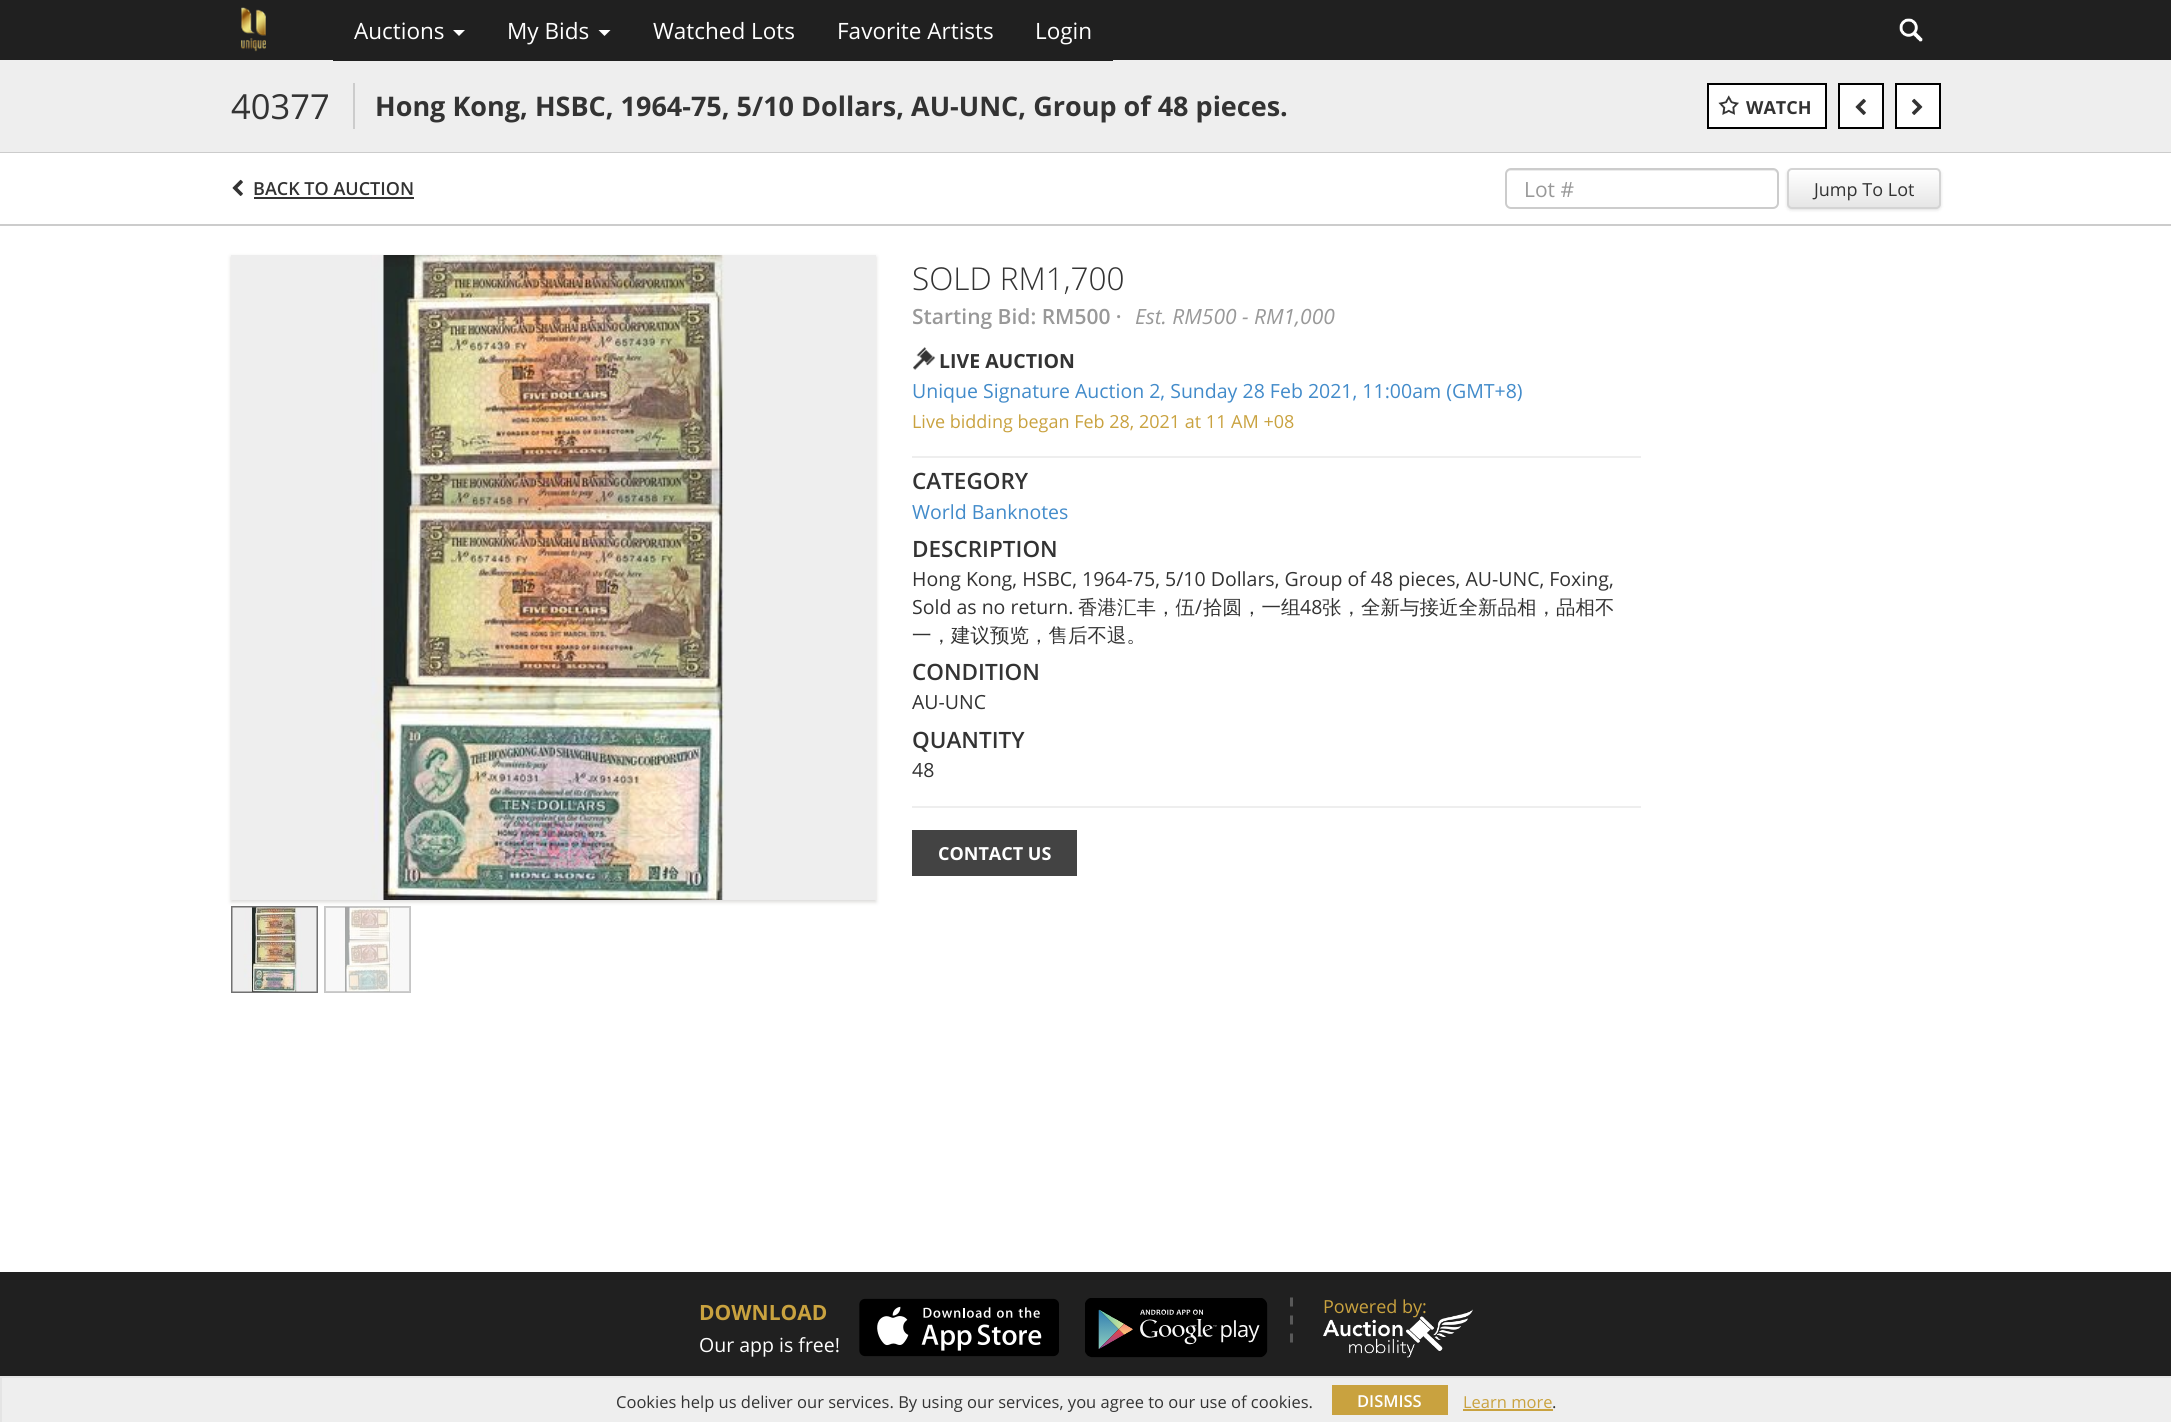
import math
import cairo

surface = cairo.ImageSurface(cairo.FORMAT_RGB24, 2171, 1422)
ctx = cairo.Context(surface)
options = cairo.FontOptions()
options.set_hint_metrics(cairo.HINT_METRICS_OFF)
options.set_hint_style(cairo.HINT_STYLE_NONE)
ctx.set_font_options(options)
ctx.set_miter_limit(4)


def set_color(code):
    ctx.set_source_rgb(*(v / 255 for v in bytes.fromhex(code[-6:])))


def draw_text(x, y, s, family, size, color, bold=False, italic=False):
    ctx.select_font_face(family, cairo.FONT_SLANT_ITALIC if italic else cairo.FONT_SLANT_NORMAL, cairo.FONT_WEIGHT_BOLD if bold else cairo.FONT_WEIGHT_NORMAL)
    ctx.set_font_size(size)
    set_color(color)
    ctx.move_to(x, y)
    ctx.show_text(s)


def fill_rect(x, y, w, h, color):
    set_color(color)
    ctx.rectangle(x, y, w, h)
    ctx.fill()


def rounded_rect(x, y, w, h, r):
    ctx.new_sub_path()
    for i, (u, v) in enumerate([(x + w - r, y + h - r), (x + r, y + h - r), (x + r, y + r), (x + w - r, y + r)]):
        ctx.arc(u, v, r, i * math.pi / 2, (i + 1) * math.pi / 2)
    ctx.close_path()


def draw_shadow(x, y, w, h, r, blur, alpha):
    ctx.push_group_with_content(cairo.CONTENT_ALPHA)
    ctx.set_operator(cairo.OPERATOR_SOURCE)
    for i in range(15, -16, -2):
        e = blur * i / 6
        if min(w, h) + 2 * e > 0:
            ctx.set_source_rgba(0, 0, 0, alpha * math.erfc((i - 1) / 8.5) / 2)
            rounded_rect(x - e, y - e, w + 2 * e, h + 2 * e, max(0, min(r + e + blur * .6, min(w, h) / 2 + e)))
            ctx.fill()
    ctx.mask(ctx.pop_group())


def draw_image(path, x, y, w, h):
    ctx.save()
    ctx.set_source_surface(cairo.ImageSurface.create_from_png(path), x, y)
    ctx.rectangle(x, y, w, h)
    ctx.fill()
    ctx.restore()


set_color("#ffffff")
ctx.paint()
fill_rect(0, 0, 2171, 60, "#202020")
draw_image("assets/img1.png", 241, 7, 25, 45)
fill_rect(0, 60, 2171, 92, "#eeeeee")
fill_rect(333, 60, 780, 1, "#202020")
draw_text(354, 39, "Auctions", "Open Sans", 22.5, "#ffffff")
ctx.new_path()
ctx.move_to(453, 30)
ctx.line_to(465, 30)
ctx.line_to(459, 36)
ctx.close_path()
ctx.fill()
draw_text(507, 39, "My Bids", "Open Sans", 22.5, "#ffffff")
ctx.new_path()
ctx.move_to(598.5, 30)
ctx.line_to(610.5, 30)
ctx.line_to(604.5, 36)
ctx.close_path()
ctx.fill()
draw_text(653, 39, "Watched Lots", "Open Sans", 22.5, "#ffffff")
draw_text(837, 39, "Favorite Artists", "Open Sans", 22.5, "#ffffff")
draw_text(1035, 39, "Login", "Open Sans", 22.5, "#ffffff")
draw_image("assets/img2.png", 1899, 18, 24, 24)
fill_rect(0, 152, 2171, 1, "#cccccc")
draw_text(231, 119, "40377", "Open Sans", 34.5, "#333333")
fill_rect(353, 83, 2, 46, "#cccccc")
draw_text(375, 116, "Hong Kong, HSBC, 1964-75, 5/10 Dollars, AU-UNC, Group of 48 pieces.", "Open Sans", 27, "#333333", bold=True)
set_color("#ffffff")
ctx.rectangle(1708, 84, 118, 44)
ctx.fill_preserve()
set_color("#000000")
ctx.stroke()
draw_image("assets/img3.png", 1718, 95, 21, 20)
draw_text(1746, 114, "WATCH", "Open Sans", 18, "#333333", bold=True)
set_color("#ffffff")
ctx.rectangle(1839, 84, 44, 44)
ctx.fill_preserve()
set_color("#000000")
ctx.stroke()
draw_image("assets/img4.png", 1855, 98, 11, 17)
set_color("#ffffff")
ctx.rectangle(1896, 84, 44, 44)
ctx.fill_preserve()
set_color("#000000")
ctx.stroke()
draw_image("assets/img5.png", 1911, 98, 12, 17)
draw_image("assets/img4.png", 232, 179, 11, 17)
draw_text(253, 195, "BACK TO AUCTION", "Open Sans SemiBold", 18, "#333333")
fill_rect(254, 197, 160, 2, "#333333")
set_color("#ececec")
ctx.new_path()
ctx.move_to(1510, 171)
ctx.line_to(1773, 171)
ctx.curve_to(1775, 171, 1778, 173, 1778, 176)
ctx.curve_to(1778, 173, 1776, 170, 1773, 170)
ctx.line_to(1511, 170)
ctx.curve_to(1508, 170, 1506, 173, 1506, 176)
ctx.curve_to(1506, 173, 1508, 171, 1510, 171)
ctx.close_path()
ctx.fill()
rounded_rect(1506, 169, 272, 39, 5)
set_color("#cccccc")
ctx.stroke()
draw_text(1524, 197, "Lot #", "Open Sans", 21, "#999999")
set_color("#000000")
draw_shadow(1788, 171, 152, 38, 3, 2, 0.2)
ctx.save()
rounded_rect(1787, 168, 154, 41, 5)
ctx.clip()
gradient = cairo.LinearGradient(1864, 170, 1864, 207)
gradient.add_color_stop_rgba(0, 1, 1, 1, 1)
gradient.add_color_stop_rgba(1, 0.902, 0.902, 0.902, 1)
ctx.set_source(gradient)
ctx.rectangle(1787, 170, 154, 37)
ctx.fill()
ctx.restore()
ctx.set_source_rgba(1, 1, 1, 0.4)
ctx.new_path()
ctx.move_to(1791, 171)
ctx.line_to(1936, 171)
ctx.curve_to(1938, 171, 1940, 172, 1940, 174)
ctx.curve_to(1940, 172, 1940, 171, 1938, 170)
ctx.line_to(1815, 170)
ctx.curve_to(1808, 170, 1788, 165, 1788, 174)
ctx.curve_to(1788, 172, 1789, 171, 1791, 171)
ctx.close_path()
ctx.fill()
rounded_rect(1788, 169, 152, 39, 4)
set_color("#d4d4d4")
ctx.stroke()
draw_text(1814, 196, "Jump To Lot", "Open Sans", 18, "#333333")
fill_rect(0, 224, 2171, 2, "#cccccc")
set_color("#dad9d7")
draw_shadow(231, 257, 645, 645, 0, 2, 1)
draw_image("assets/img6.png", 231, 255, 645, 645)
ctx.rectangle(232, 907, 85, 85)
set_color("#717171")
ctx.stroke()
ctx.rectangle(325, 907, 85, 85)
set_color("#c6c6c6")
ctx.stroke()
draw_image("assets/img7.png", 232, 907, 85, 85)
draw_image("assets/img8.png", 325, 907, 85, 85)
draw_text(912, 290, "SOLD RM1,700", "Open Sans Light", 31.5, "#333333")
draw_text(912, 324, "Starting Bid: RM500 ·", "Open Sans SemiBold", 21, "#999999")
draw_text(1135, 324, "Est. RM500 - RM1,000", "Open Sans", 21, "#999999", italic=True)
draw_image("assets/img9.png", 913, 347, 23, 23)
draw_text(939, 368, "LIVE AUCTION", "Open Sans", 19.5, "#333333", bold=True)
draw_text(912, 398, "Unique Signature Auction 2, Sunday 28 Feb 2021, 11:00am (GMT+8)", "Open Sans", 19.5, "#428bca")
draw_text(912, 428, "Live bidding began Feb 28, 2021 at 11 AM +08", "Open Sans", 18, "#c9a23f")
fill_rect(912, 456, 729, 2, "#eeeeee")
draw_text(912, 489, "CATEGORY", "Open Sans SemiBold", 22.5, "#333333")
draw_text(912, 519, "World Banknotes", "Open Sans", 19.5, "#428bca")
draw_text(912, 557, "DESCRIPTION", "Open Sans SemiBold", 22.5, "#333333")
draw_text(912, 586, "Hong Kong, HSBC, 1964-75, 5/10 Dollars, Group of 48 pieces, AU-UNC, Foxing,", "Open Sans", 19.5, "#333333")
draw_text(912, 614, "Sold as no return.", "Open Sans", 19.5, "#333333")
draw_text(1078, 614, "香港汇丰，伍", "WenQuanYi Zen Hei Medium", 19.5, "#333333")
draw_text(1195, 614, "/", "Open Sans", 19.5, "#333333")
draw_text(1203, 614, "拾圆，一组", "WenQuanYi Zen Hei Medium", 19.5, "#333333")
draw_text(1300, 614, "48", "Open Sans", 19.5, "#333333")
draw_text(1322, 614, "张，全新与接近全新品相，品相不", "WenQuanYi Zen Hei Medium", 19.5, "#333333")
draw_text(912, 642, "一，建议预览，售后不退。", "WenQuanYi Zen Hei Medium", 19.5, "#333333")
draw_text(912, 680, "CONDITION", "Open Sans SemiBold", 22.5, "#333333")
draw_text(912, 709, "AU-UNC", "Open Sans", 19.5, "#333333")
draw_text(912, 748, "QUANTITY", "Open Sans SemiBold", 22.5, "#333333")
draw_text(912, 777, "48", "Open Sans", 19.5, "#333333")
fill_rect(912, 806, 729, 2, "#eeeeee")
fill_rect(912, 830, 165, 46, "#434343")
draw_text(938, 860, "CONTACT US", "Open Sans", 18, "#ffffff", bold=True)
fill_rect(0, 1272, 2171, 104, "#202020")
draw_text(699, 1320, "DOWNLOAD", "Open Sans", 21, "#c9a23f", bold=True)
draw_text(699, 1352, "Our app is free!", "Open Sans", 19.5, "#ffffff")
draw_image("assets/img10.png", 859, 1298, 200, 59)
draw_image("assets/img11.png", 1085, 1298, 183, 60)
ctx.new_path()
ctx.move_to(1291.5, 1297.5)
ctx.line_to(1291.5, 1306.5)
ctx.move_to(1291.5, 1315.5)
ctx.line_to(1291.5, 1324.5)
ctx.move_to(1291.5, 1333.5)
ctx.line_to(1291.5, 1342.5)
set_color("#595959")
ctx.set_line_width(3)
ctx.stroke()
draw_text(1323, 1313, "Powered by:", "Open Sans", 18, "#c9a23f")
draw_image("assets/img12.png", 1323, 1309, 150, 49)
fill_rect(2, 1378, 2169, 44, "#eeeeee")
fill_rect(0, 1376, 2171, 2, "#e4e4e4")
fill_rect(0, 1376, 2, 46, "#e4e4e4")
draw_text(616, 1408, "Cookies help us deliver our services. By using our services, you agree to our use of cookies.", "Open Sans", 16.5, "#333333")
fill_rect(1332, 1385, 116, 30, "#c9a23f")
draw_text(1357, 1407, "DISMISS", "Open Sans SemiBold", 16.5, "#ffffff")
draw_text(1463, 1408, "Learn more", "Open Sans", 16.5, "#c9a23f")
fill_rect(1463, 1409, 90, 2, "#c9a23f")
draw_text(1552, 1408, ".", "Open Sans", 16.5, "#333333")
surface.write_to_png("output.png")
